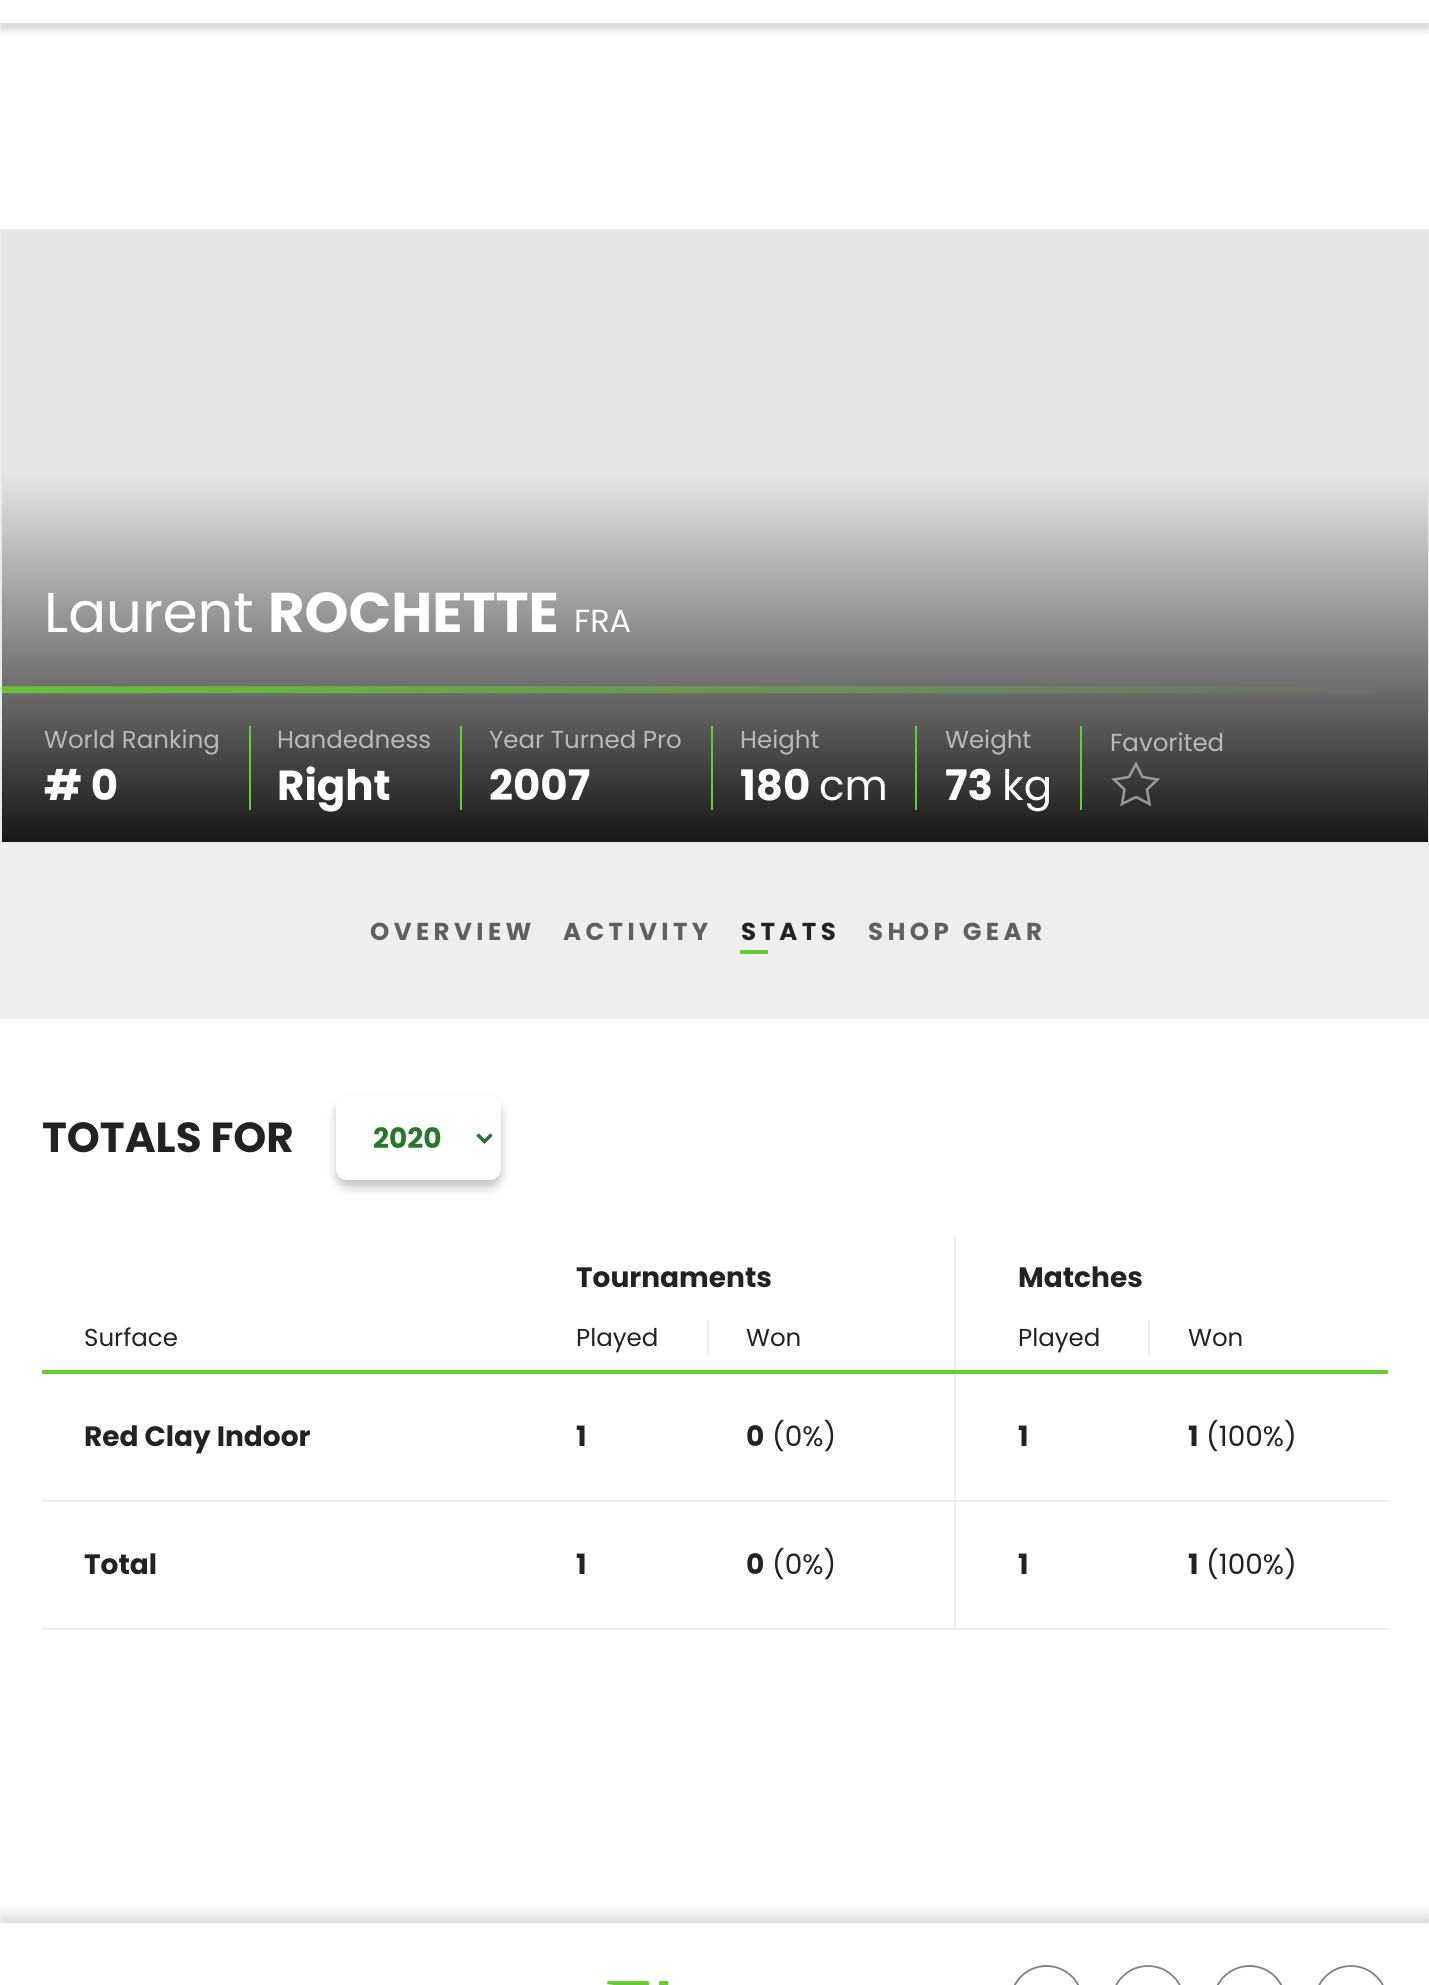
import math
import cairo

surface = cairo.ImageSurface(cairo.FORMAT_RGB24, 1429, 1985)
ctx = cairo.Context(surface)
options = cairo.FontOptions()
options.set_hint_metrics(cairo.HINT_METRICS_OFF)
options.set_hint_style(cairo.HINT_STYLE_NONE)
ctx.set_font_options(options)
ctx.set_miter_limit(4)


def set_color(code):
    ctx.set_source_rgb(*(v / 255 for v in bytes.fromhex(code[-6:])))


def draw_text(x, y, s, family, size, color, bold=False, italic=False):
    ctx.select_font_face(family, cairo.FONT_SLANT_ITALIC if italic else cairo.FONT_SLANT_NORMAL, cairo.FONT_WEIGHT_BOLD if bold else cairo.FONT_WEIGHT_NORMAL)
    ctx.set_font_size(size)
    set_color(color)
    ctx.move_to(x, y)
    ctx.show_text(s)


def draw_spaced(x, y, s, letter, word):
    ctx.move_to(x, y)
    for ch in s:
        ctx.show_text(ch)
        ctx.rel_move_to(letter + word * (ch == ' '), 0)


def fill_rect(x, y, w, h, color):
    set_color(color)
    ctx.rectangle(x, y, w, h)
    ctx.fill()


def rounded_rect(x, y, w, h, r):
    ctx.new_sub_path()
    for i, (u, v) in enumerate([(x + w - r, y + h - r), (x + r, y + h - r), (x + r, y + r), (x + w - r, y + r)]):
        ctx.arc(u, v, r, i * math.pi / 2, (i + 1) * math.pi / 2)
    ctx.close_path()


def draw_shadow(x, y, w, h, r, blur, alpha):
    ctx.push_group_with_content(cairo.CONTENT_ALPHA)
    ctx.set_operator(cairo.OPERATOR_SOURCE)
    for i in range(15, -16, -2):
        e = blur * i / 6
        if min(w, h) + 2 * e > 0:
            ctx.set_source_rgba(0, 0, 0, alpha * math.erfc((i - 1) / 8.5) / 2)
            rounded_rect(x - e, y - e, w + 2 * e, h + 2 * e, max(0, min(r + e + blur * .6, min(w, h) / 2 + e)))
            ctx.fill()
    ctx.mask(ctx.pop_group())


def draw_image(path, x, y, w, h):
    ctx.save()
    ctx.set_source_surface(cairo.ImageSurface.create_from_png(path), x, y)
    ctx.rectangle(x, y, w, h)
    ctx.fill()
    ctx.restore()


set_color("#ffffff")
ctx.paint()
set_color("#000000")
draw_shadow(0, -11, 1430, 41, 0, 3.5, 0.16)
fill_rect(0, 0, 1429, 23, "#ffffff")
ctx.rectangle(1, 230, 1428, 613)
set_color("#ebebeb")
ctx.stroke()
gradient = cairo.LinearGradient(715, 231, 715, 842)
gradient.add_color_stop_rgba(0, 0.898, 0.898, 0.898, 1)
gradient.add_color_stop_rgba(0.4, 0.898, 0.898, 0.898, 1)
gradient.add_color_stop_rgba(1, 0.09, 0.09, 0.09, 1)
ctx.set_source(gradient)
ctx.rectangle(2, 231, 1426, 611)
ctx.fill()
draw_text(44, 632, "Laurent", "Poppins", 56, "#ffffff")
draw_text(268, 632, "ROCHETTE", "Poppins", 56, "#ffffff", bold=True)
draw_text(574, 632, "FRA", "Poppins", 32, "#ffffff")
draw_image("assets/img1.png", 1, 686, 1375, 8)
draw_text(44, 748, "World Ranking", "Poppins", 24.5, "#b9b9b9")
draw_text(44, 800, "# 0", "Poppins", 42, "#ffffff", bold=True)
fill_rect(249, 726, 2, 84, "#66cc33")
draw_text(277, 748, "Handedness", "Poppins", 24.5, "#b9b9b9")
draw_text(277, 800, "Right", "Poppins", 42, "#ffffff", bold=True)
fill_rect(460, 726, 2, 84, "#66cc33")
draw_text(489, 748, "Year Turned Pro", "Poppins", 24.5, "#b9b9b9")
draw_text(489, 800, "2007", "Poppins", 42, "#ffffff", bold=True)
fill_rect(711, 726, 2, 84, "#66cc33")
draw_text(740, 748, "Height", "Poppins", 24.5, "#b9b9b9")
draw_text(740, 800, "180", "Poppins", 42, "#ffffff", bold=True)
draw_text(819, 800, "cm", "Poppins", 42, "#ffffff")
fill_rect(915, 726, 2, 84, "#66cc33")
draw_text(945, 748, "Weight", "Poppins", 24.5, "#b9b9b9")
draw_text(945, 800, "73", "Poppins", 42, "#ffffff", bold=True)
draw_text(1002, 800, "kg", "Poppins", 42, "#ffffff")
fill_rect(1080, 726, 2, 84, "#66cc33")
draw_text(1110, 751, "Favorited", "Poppins", 24.5, "#b9b9b9")
ctx.new_path()
ctx.move_to(1136, 764)
ctx.line_to(1142.5, 777)
ctx.line_to(1157.5, 779.5)
ctx.line_to(1147, 789.5)
ctx.line_to(1149.5, 804)
ctx.line_to(1136, 797)
ctx.line_to(1122, 804)
ctx.line_to(1124.5, 789.5)
ctx.line_to(1114, 779.5)
ctx.line_to(1129, 777)
ctx.close_path()
set_color("#999999")
ctx.set_line_width(2.6)
ctx.stroke()
fill_rect(0, 844, 1429, 175, "#eeeeee")
ctx.select_font_face("Poppins", cairo.FONT_SLANT_NORMAL, cairo.FONT_WEIGHT_BOLD)
set_color("#5f5f5f")
draw_spaced(370, 940, "OVERVIEW", 4.4, 0)
draw_spaced(563, 940, "ACTIVITY", 4.4, 0)
set_color("#222222")
draw_spaced(741, 940, "STATS", 4.4, 0)
fill_rect(740, 950, 28, 4, "#66cc33")
set_color("#5f5f5f")
draw_spaced(868, 940, "SHOP GEAR", 4.4, 0)
draw_text(42, 1152, "TOTALS FOR", "Poppins", 42, "#222222", bold=True)
set_color("#000000")
draw_shadow(336, 1103, 165, 84, 11, 5, 0.24)
set_color("#ffffff")
rounded_rect(336, 1096, 165, 84, 11)
ctx.fill()
ctx.new_path()
ctx.move_to(477.5, 1134.5)
ctx.line_to(484.5, 1141.5)
ctx.line_to(491.5, 1134.5)
set_color("#26762c")
ctx.set_line_width(3.5)
ctx.stroke()
draw_text(373, 1148, "2020", "Poppins", 28, "#26762c", bold=True)
fill_rect(42, 1370, 1346, 4, "#66cc33")
draw_text(576, 1287, "Tournaments", "Poppins", 28, "#222222", bold=True)
fill_rect(954, 1236, 2, 134, "#eeeeee")
draw_text(1018, 1287, "Matches", "Poppins", 28, "#222222", bold=True)
draw_text(84, 1346, "Surface", "Poppins", 24.5, "#222222")
draw_text(576, 1346, "Played", "Poppins", 24.5, "#222222")
fill_rect(707, 1320, 2, 36, "#eeeeee")
draw_text(746, 1346, "Won", "Poppins", 24.5, "#222222")
draw_text(1018, 1346, "Played", "Poppins", 24.5, "#222222")
fill_rect(1148, 1320, 2, 36, "#eeeeee")
draw_text(1188, 1346, "Won", "Poppins", 24.5, "#222222")
fill_rect(42, 1500, 1346, 2, "#eeeeee")
draw_text(84, 1446, "Red Clay Indoor", "Poppins", 28, "#222222", bold=True)
draw_text(576, 1446, "1", "Poppins", 28, "#222222", bold=True)
draw_text(746, 1446, "0", "Poppins", 28, "#222222", bold=True)
draw_text(772, 1446, "(0%)", "Poppins", 28, "#222222")
fill_rect(954, 1374, 2, 126, "#eeeeee")
draw_text(1018, 1446, "1", "Poppins", 28, "#222222", bold=True)
draw_text(1188, 1446, "1", "Poppins", 28, "#222222", bold=True)
draw_text(1206, 1446, "(100%)", "Poppins", 28, "#222222")
fill_rect(42, 1628, 1346, 2, "#eeeeee")
draw_text(84, 1574, "Total", "Poppins", 28, "#222222", bold=True)
draw_text(576, 1574, "1", "Poppins", 28, "#222222", bold=True)
draw_text(746, 1574, "0", "Poppins", 28, "#222222", bold=True)
draw_text(772, 1574, "(0%)", "Poppins", 28, "#222222")
fill_rect(954, 1502, 2, 126, "#eeeeee")
draw_text(1018, 1574, "1", "Poppins", 28, "#222222", bold=True)
draw_text(1188, 1574, "1", "Poppins", 28, "#222222", bold=True)
draw_text(1206, 1574, "(100%)", "Poppins", 28, "#222222")
ctx.save()
ctx.set_fill_rule(cairo.FILL_RULE_EVEN_ODD)
ctx.new_path()
ctx.move_to(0, 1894)
ctx.line_to(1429, 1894)
ctx.line_to(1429, 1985)
ctx.line_to(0, 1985)
ctx.close_path()
ctx.move_to(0, 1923)
ctx.line_to(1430, 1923)
ctx.line_to(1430, 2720)
ctx.line_to(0, 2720)
ctx.close_path()
ctx.clip()
set_color("#000000")
draw_shadow(0, 1916, 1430, 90, 0, 7, 0.16)
ctx.restore()
draw_image("assets/img2.png", 607, 1981, 62, 4)
draw_image("assets/img3.png", 1013, 1965, 67, 20)
ctx.arc(1148, 2002, 36, 0, 2 * math.pi)
set_color("#808080")
ctx.set_line_width(1.8)
ctx.stroke()
draw_image("assets/img3.png", 1216, 1965, 67, 20)
ctx.arc(1351, 2002, 36, 0, 2 * math.pi)
ctx.stroke()
surface.write_to_png("output.png")
